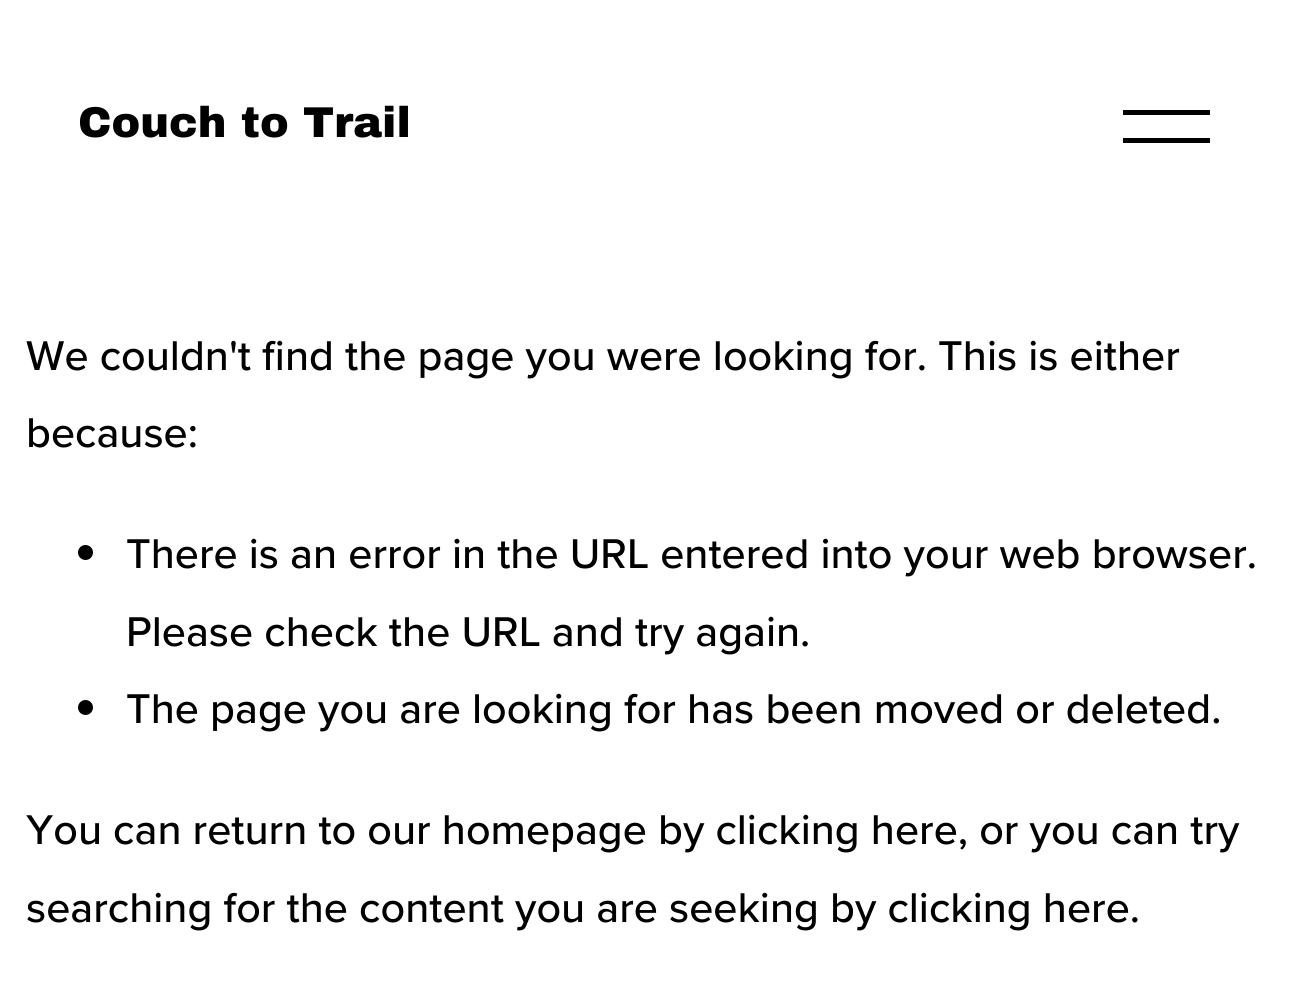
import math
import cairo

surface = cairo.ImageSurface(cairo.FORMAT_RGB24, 1301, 983)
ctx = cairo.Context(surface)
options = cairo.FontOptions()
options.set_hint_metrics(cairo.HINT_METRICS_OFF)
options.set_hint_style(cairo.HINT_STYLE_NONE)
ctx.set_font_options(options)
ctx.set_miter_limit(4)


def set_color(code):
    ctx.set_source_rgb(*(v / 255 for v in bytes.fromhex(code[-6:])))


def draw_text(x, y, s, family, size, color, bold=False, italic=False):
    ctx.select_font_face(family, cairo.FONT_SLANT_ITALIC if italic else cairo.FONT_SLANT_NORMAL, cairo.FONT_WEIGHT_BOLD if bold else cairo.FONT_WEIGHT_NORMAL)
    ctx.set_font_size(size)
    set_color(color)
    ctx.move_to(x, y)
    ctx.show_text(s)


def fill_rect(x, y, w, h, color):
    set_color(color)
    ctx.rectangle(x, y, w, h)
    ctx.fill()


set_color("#ffffff")
ctx.paint()
draw_text(78, 137, "Couch to Trail", "Archivo Black Black", 43.1, "#000000")
fill_rect(1123, 110, 87, 5, "#000000")
fill_rect(1123, 138, 87, 5, "#000000")
draw_text(26, 370, "We couldn't find the page you were looking for. This is either", "Proxima Nova Medium", 43.1, "#000000")
draw_text(26, 447, "because:", "Proxima Nova Medium", 43.1, "#000000")
ctx.new_path()
ctx.arc(85.5, 552.5, 7.5, 0, 2 * math.pi)
ctx.fill()
draw_text(126, 568, "There is an error in the URL entered into your web browser.", "Proxima Nova Medium", 43.1, "#000000")
draw_text(126, 646, "Please check the URL and try again.", "Proxima Nova Medium", 43.1, "#000000")
ctx.new_path()
ctx.arc(85.5, 707.5, 7.5, 0, 2 * math.pi)
ctx.fill()
draw_text(126, 723, "The page you are looking for has been moved or deleted.", "Proxima Nova Medium", 43.1, "#000000")
draw_text(26, 844, "You can return to our homepage by clicking here, or you can try", "Proxima Nova Medium", 43.1, "#000000")
draw_text(26, 922, "searching for the content you are seeking by clicking here.", "Proxima Nova Medium", 43.1, "#000000")
surface.write_to_png("output.png")
